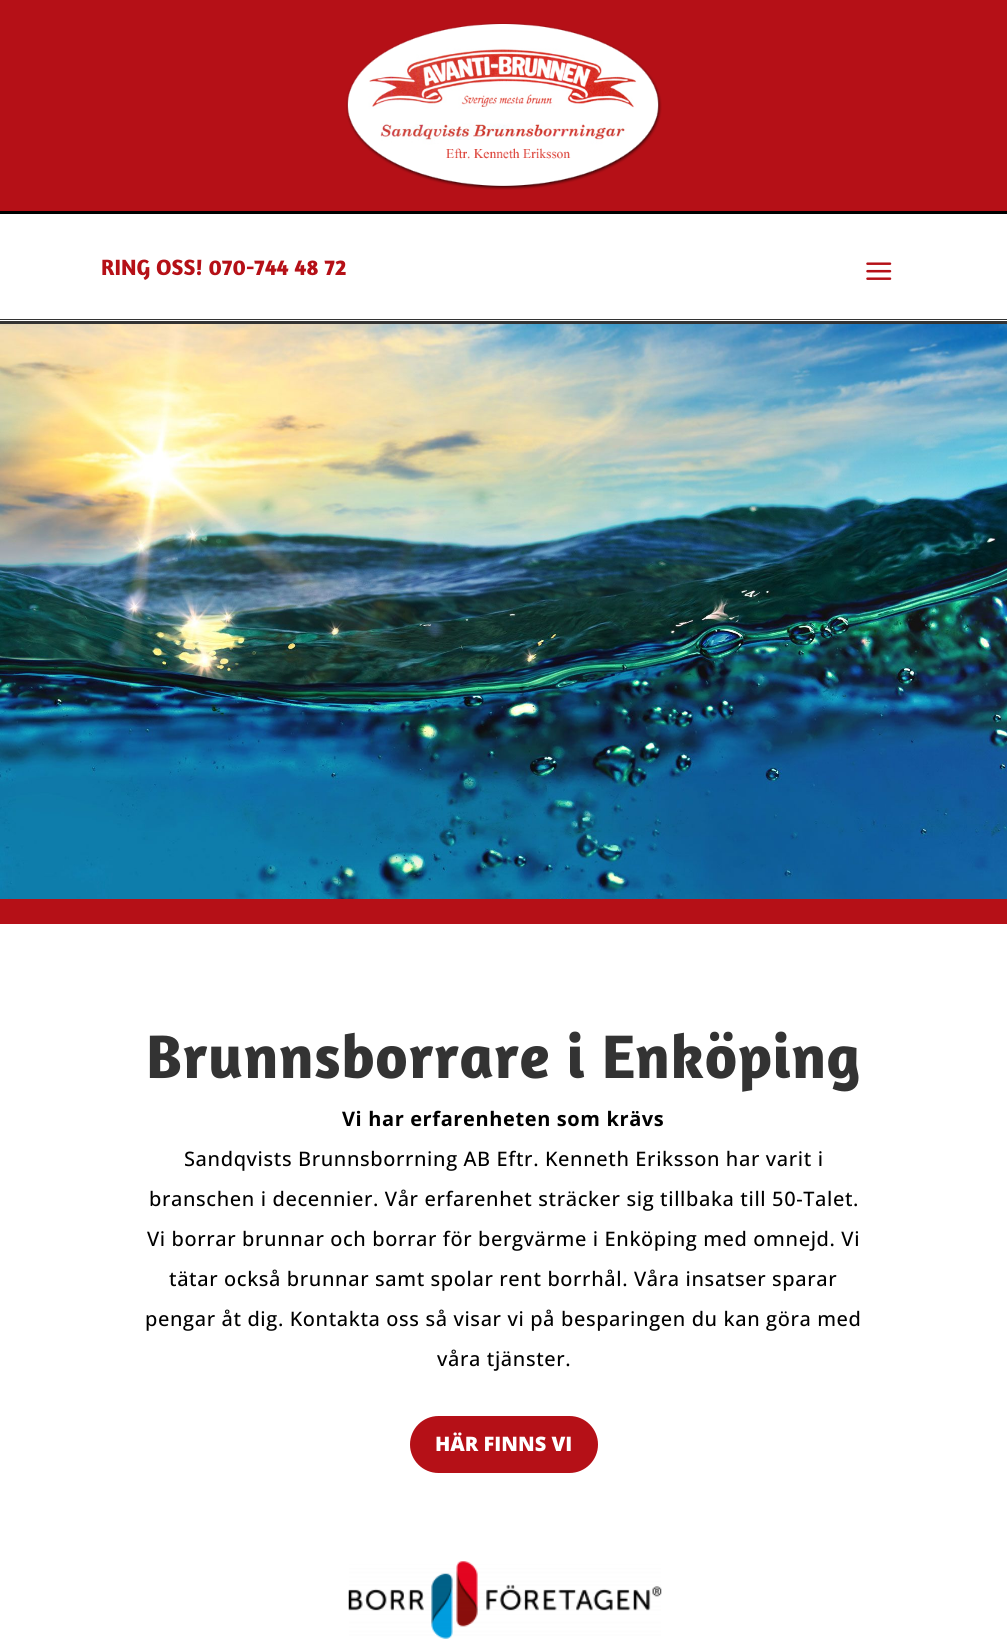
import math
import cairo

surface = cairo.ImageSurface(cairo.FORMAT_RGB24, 1007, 1646)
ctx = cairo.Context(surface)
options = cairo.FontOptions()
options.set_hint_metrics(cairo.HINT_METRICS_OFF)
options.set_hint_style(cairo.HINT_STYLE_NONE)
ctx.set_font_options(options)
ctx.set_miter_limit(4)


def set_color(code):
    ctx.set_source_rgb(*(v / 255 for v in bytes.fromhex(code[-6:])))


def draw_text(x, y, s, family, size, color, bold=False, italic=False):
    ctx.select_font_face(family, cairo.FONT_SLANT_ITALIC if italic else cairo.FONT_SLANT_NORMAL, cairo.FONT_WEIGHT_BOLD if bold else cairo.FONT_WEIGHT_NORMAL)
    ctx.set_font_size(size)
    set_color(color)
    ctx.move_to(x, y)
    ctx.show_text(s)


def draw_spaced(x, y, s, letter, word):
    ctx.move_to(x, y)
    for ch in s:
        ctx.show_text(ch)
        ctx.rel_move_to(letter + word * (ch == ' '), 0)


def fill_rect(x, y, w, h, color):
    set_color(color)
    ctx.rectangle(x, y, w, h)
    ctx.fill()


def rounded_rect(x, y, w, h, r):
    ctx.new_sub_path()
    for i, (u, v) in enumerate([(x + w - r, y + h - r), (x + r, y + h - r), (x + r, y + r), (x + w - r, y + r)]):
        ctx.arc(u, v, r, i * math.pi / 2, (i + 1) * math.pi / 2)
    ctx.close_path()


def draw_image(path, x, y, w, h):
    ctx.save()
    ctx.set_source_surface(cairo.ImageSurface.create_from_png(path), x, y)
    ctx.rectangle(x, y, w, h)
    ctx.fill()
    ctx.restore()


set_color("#ffffff")
ctx.paint()
fill_rect(0, 0, 1007, 211, "#b51017")
draw_image("assets/img1.png", 346, 23, 316, 167)
fill_rect(0, 211, 1007, 3, "#000000")
fill_rect(0, 319, 1007, 1, "#333333")
draw_text(101, 275, "RING OSS! 070-744 48 72", "Amaranth", 22.5, "#b51017", bold=True)
draw_image("assets/img2.png", 866, 262, 26, 18)
draw_image("assets/img3.png", 0, 324, 1007, 575)
fill_rect(0, 321, 1007, 3, "#333333")
fill_rect(0, 899, 1007, 25, "#b51017")
ctx.set_font_size(62.5)
set_color("#333333")
draw_spaced(146, 1078, "Brunnsborrare i Enköping", 0.62, 0)
ctx.select_font_face("Open Sans", cairo.FONT_SLANT_NORMAL, cairo.FONT_WEIGHT_BOLD)
ctx.set_font_size(20)
set_color("#000000")
draw_spaced(342, 1126, "Vi har erfarenheten som krävs", 0.62, 0)
ctx.select_font_face("Open Sans Medium")
draw_spaced(184, 1166, "Sandqvists Brunnsborrning AB Eftr. Kenneth Eriksson har varit i", 0.62, 0)
draw_spaced(149, 1206, "branschen i decennier. Vår erfarenhet sträcker sig tillbaka till 50-Talet.", 0.62, 0)
draw_spaced(147, 1246, "Vi borrar brunnar och borrar för bergvärme i Enköping med omnejd. Vi", 0.62, 0)
draw_spaced(169, 1286, "tätar också brunnar samt spolar rent borrhål. Våra insatser sparar", 0.62, 0)
draw_spaced(145, 1326, "pengar åt dig. Kontakta oss så visar vi på besparingen du kan göra med", 0.62, 0)
draw_spaced(437, 1366, "våra tjänster.", 0.62, 0)
set_color("#b51017")
rounded_rect(412.5, 1418.5, 183, 52, 26)
ctx.fill_preserve()
ctx.set_line_width(5)
ctx.stroke()
draw_text(435, 1451, "HÄR FINNS VI", "Open Sans ExtraBold", 20, "#ffffff")
draw_image("assets/img4.png", 348, 1561, 314, 78)
surface.write_to_png("output.png")
